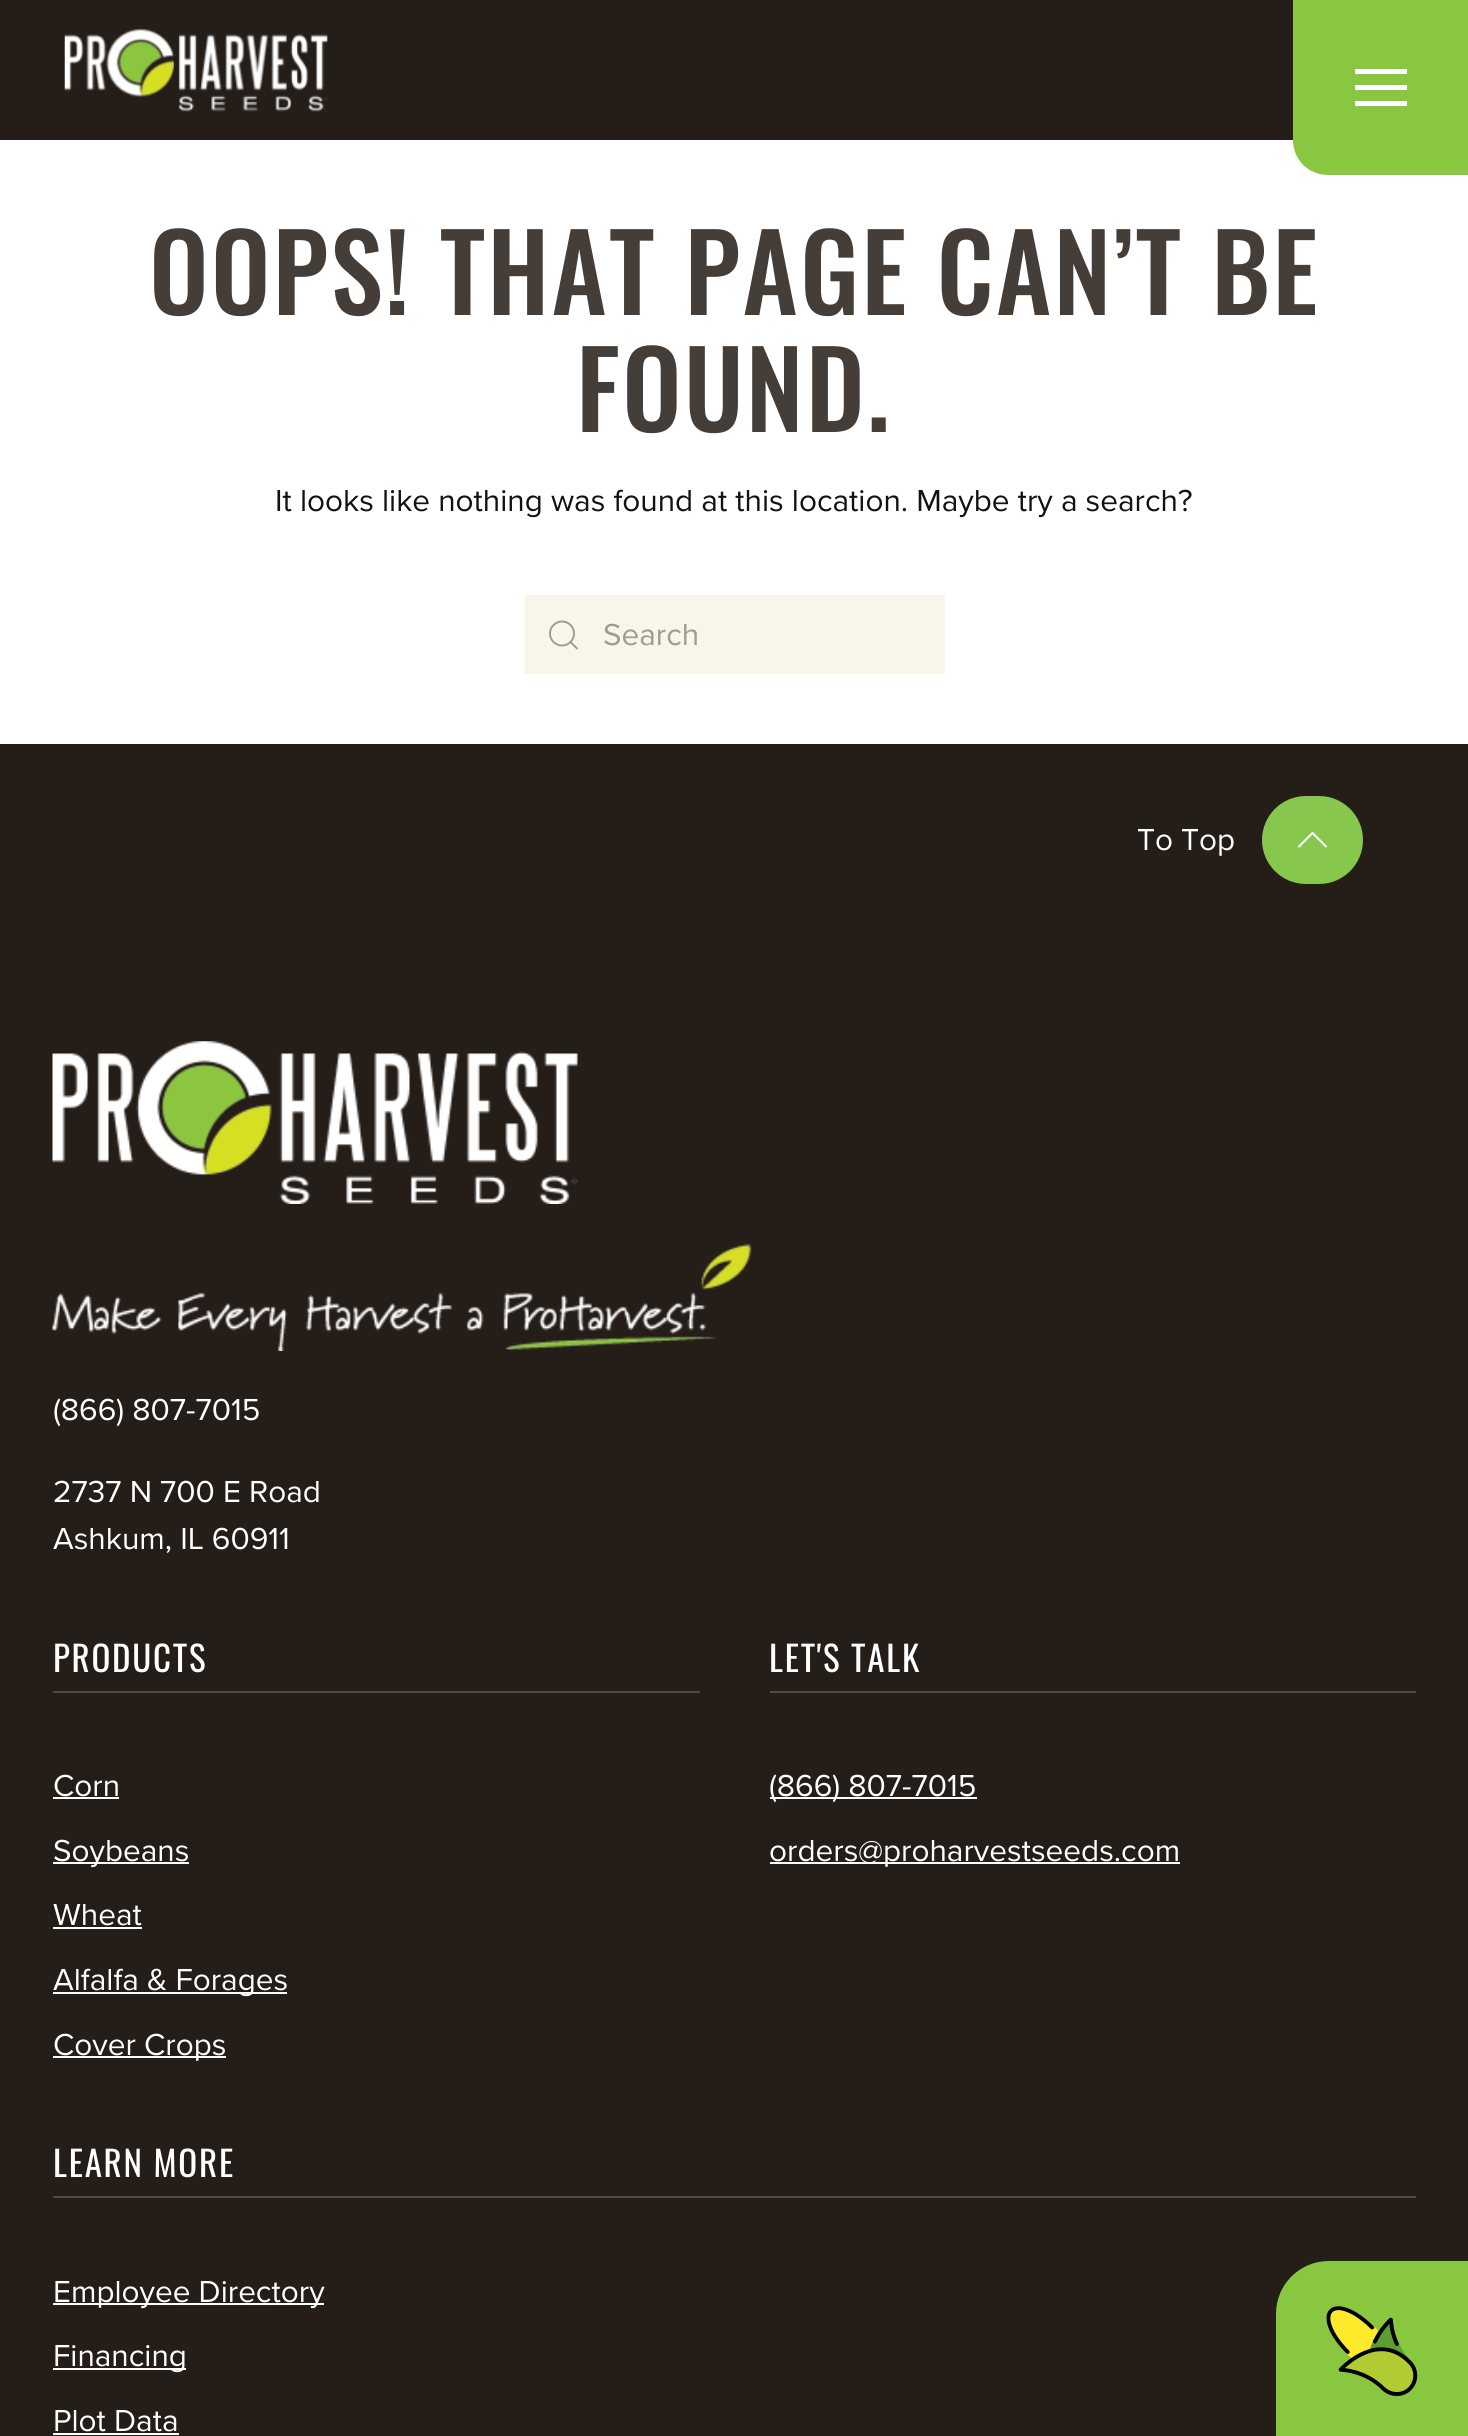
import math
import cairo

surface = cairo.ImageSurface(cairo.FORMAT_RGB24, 1468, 2436)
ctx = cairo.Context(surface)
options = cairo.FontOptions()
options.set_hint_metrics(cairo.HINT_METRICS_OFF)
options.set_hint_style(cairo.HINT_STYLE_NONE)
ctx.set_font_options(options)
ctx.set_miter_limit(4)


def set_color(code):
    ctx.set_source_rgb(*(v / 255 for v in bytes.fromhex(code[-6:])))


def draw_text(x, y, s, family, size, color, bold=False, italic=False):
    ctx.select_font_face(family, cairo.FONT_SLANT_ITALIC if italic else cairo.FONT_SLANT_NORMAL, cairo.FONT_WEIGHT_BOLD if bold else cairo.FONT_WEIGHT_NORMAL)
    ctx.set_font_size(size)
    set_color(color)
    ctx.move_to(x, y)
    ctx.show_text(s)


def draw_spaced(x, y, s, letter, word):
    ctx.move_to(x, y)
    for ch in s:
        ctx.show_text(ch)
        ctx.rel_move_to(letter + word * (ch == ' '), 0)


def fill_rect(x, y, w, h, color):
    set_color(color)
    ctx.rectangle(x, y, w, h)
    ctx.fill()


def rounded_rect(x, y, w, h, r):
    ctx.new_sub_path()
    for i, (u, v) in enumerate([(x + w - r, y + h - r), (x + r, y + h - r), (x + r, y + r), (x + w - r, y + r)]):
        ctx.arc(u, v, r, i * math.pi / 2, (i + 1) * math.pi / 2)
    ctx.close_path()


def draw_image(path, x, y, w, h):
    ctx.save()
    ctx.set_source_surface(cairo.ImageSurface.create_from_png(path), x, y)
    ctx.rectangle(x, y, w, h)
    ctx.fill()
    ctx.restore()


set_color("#ffffff")
ctx.paint()
fill_rect(0, 0, 1293, 140, "#241d18")
draw_image("assets/img1.png", 64, 29, 264, 83)
set_color("#8ac740")
ctx.new_path()
ctx.move_to(1293, 0)
ctx.line_to(1468, 0)
ctx.line_to(1468, 175)
ctx.line_to(1328, 175)
ctx.curve_to(1308.5, 175, 1293, 159.5, 1293, 140)
ctx.close_path()
ctx.fill()
fill_rect(1355, 69, 52, 5, "#ffffff")
fill_rect(1355, 85, 52, 5, "#ffffff")
fill_rect(1355, 101, 52, 5, "#ffffff")
ctx.select_font_face("Oswald Medium")
ctx.set_font_size(106)
set_color("#453e38")
draw_spaced(149, 315, "OOPS! THAT PAGE CAN’T BE", 2.1, 0)
draw_spaced(576, 432, "FOUND.", 2.1, 0)
draw_text(275, 511, "It looks like nothing was found at this location. Maybe try a search?", "Proxima Nova", 31.5, "#15110e")
fill_rect(525, 595, 420, 79, "#f8f5e9")
ctx.new_path()
ctx.arc(562, 633.5, 12, 0, 2 * math.pi)
set_color("#a09a91")
ctx.set_line_width(1.9)
ctx.stroke()
ctx.new_path()
ctx.move_to(570.5, 642)
ctx.line_to(577.5, 649)
ctx.close_path()
ctx.stroke()
draw_text(603, 645, "Search", "Proxima Nova", 31.5, "#a09a91")
fill_rect(0, 744, 1468, 1692, "#241d18")
draw_text(1137, 850, "To Top", "Proxima Nova", 31.5, "#ffffff")
set_color("#88c74e")
rounded_rect(1262, 796, 101, 88, 44)
ctx.fill()
ctx.new_path()
ctx.move_to(1298.5, 847)
ctx.line_to(1312.5, 833)
ctx.line_to(1326.5, 847)
set_color("#ffffff")
ctx.set_line_width(2.1)
ctx.stroke()
set_color("#8ac740")
ctx.new_path()
ctx.move_to(1329, 2261)
ctx.line_to(1468, 2261)
ctx.line_to(1468, 2436)
ctx.line_to(1276, 2436)
ctx.line_to(1276, 2314)
ctx.curve_to(1276, 2284.5, 1299.5, 2261, 1329, 2261)
ctx.close_path()
ctx.fill()
draw_image("assets/img2.png", 1326, 2306, 92, 91)
draw_image("assets/img3.png", 52, 1041, 526, 163)
draw_image("assets/img4.png", 52, 1243, 700, 108)
draw_text(53, 1420, "(866) 807-7015", "Proxima Nova", 31.5, "#ffffff")
draw_text(53, 1502, "2737 N 700 E Road", "Proxima Nova", 31.5, "#ffffff")
draw_text(53, 1549, "Ashkum, IL 60911", "Proxima Nova", 31.5, "#ffffff")
fill_rect(53, 1691, 647, 2, "#504a46")
ctx.select_font_face("Oswald")
ctx.set_font_size(35)
set_color("#ffffff")
draw_spaced(53, 1672, "PRODUCTS", 1.75, 0)
draw_text(53, 1796, "Corn", "Proxima Nova", 31.5, "#ffffff")
fill_rect(53, 1797, 66, 2, "#ffffff")
fill_rect(53, 1862, 136, 2, "#ffffff")
draw_text(53, 1861, "Soybeans", "Proxima Nova", 31.5, "#ffffff")
draw_text(53, 1925, "Wheat", "Proxima Nova", 31.5, "#ffffff")
fill_rect(53, 1927, 89, 2, "#ffffff")
fill_rect(53, 1992, 234, 2, "#ffffff")
draw_text(53, 1990, "Alfalfa & Forages", "Proxima Nova", 31.5, "#ffffff")
fill_rect(53, 2056, 173, 2, "#ffffff")
draw_text(53, 2055, "Cover Crops", "Proxima Nova", 31.5, "#ffffff")
fill_rect(770, 1691, 646, 2, "#504a46")
ctx.select_font_face("Oswald")
ctx.set_font_size(35)
set_color("#ffffff")
draw_spaced(769, 1672, "LET'S TALK", 1.75, 0)
fill_rect(770, 1797, 207, 2, "#ffffff")
draw_text(769, 1796, "(866) 807-7015", "Proxima Nova", 31.5, "#ffffff")
fill_rect(770, 1862, 410, 2, "#ffffff")
draw_text(769, 1861, "orders@proharvestseeds.com", "Proxima Nova", 31.5, "#ffffff")
fill_rect(53, 2196, 1363, 2, "#504a46")
ctx.select_font_face("Oswald")
ctx.set_font_size(35)
set_color("#ffffff")
draw_spaced(53, 2177, "LEARN MORE", 1.75, 0)
fill_rect(53, 2303, 271, 2, "#ffffff")
draw_text(53, 2302, "Employee Directory", "Proxima Nova", 31.5, "#ffffff")
fill_rect(53, 2368, 133, 2, "#ffffff")
draw_text(53, 2366, "Financing", "Proxima Nova", 31.5, "#ffffff")
draw_text(53, 2431, "Plot Data", "Proxima Nova", 31.5, "#ffffff")
fill_rect(53, 2433, 126, 2, "#ffffff")
surface.write_to_png("output.png")
